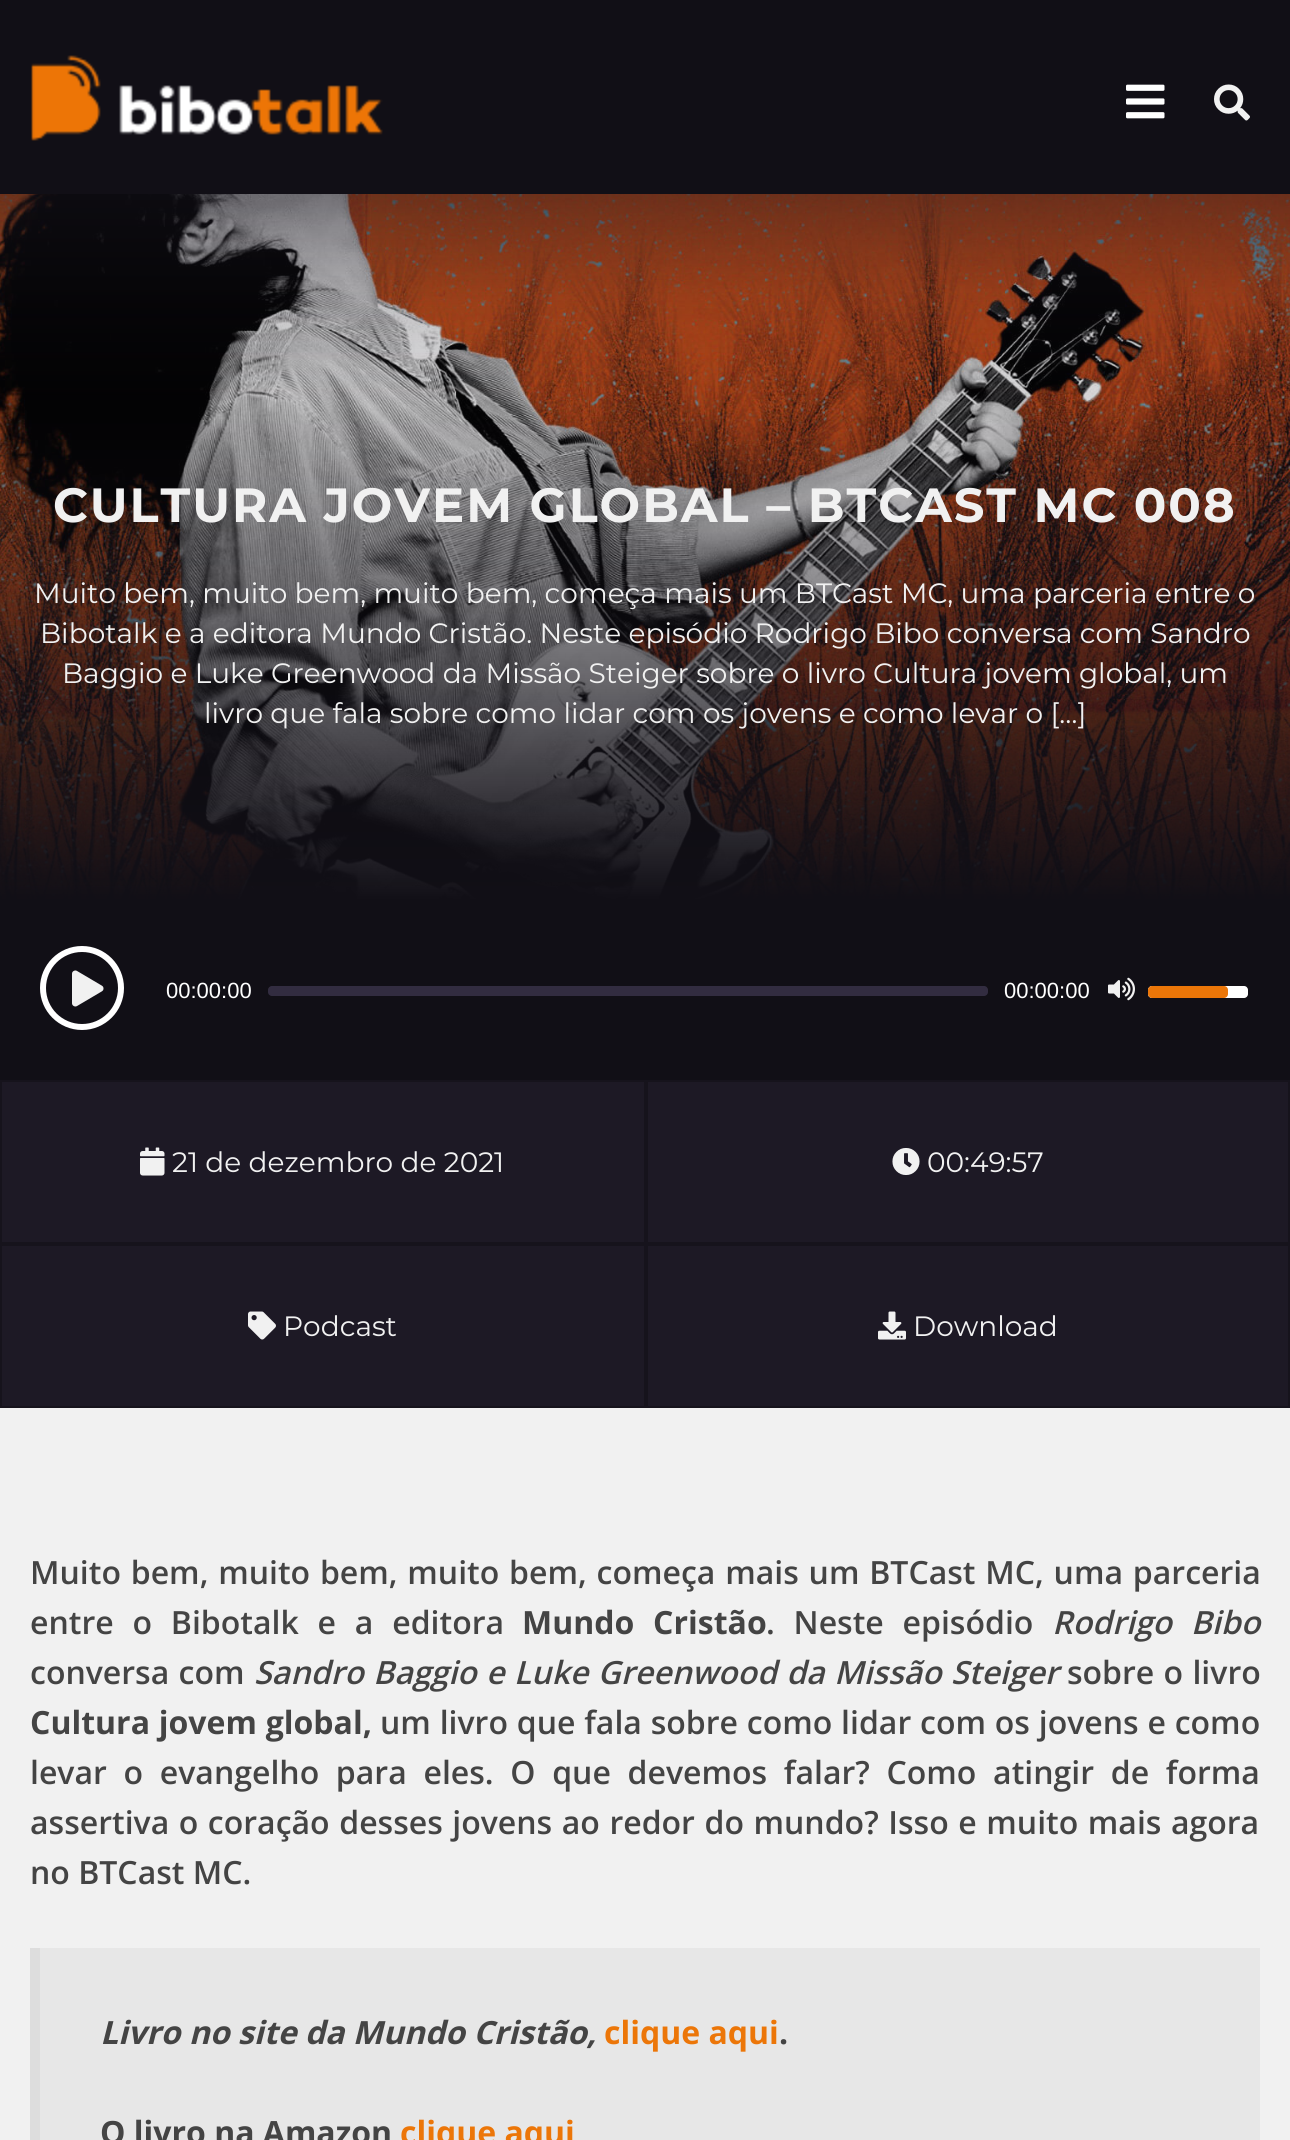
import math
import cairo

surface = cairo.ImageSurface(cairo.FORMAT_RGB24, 1290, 2140)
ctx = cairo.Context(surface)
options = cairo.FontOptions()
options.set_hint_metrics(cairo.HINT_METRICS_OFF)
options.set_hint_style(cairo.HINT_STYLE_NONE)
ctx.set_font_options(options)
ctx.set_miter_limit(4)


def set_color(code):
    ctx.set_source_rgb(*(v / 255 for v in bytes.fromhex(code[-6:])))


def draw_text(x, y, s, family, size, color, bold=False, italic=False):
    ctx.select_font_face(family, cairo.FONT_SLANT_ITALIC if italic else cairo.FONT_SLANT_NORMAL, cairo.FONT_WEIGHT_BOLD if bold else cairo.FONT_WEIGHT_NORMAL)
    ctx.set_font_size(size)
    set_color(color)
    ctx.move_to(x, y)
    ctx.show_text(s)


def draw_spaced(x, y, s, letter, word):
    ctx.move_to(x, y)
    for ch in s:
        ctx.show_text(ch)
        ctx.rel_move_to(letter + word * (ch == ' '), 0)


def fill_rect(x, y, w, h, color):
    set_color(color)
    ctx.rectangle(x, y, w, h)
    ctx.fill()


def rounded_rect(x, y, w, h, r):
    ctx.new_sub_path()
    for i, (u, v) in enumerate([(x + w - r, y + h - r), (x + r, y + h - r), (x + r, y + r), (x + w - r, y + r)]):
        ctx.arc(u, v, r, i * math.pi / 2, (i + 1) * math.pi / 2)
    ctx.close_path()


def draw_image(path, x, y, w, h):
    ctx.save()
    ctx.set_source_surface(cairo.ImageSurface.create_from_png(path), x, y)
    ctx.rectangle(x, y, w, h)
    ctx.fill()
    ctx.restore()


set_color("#110f16")
ctx.paint()
draw_image("assets/img1.png", 31, 55, 352, 86)
draw_image("assets/img2.png", 1126, 84, 39, 35)
draw_image("assets/img3.png", 1214, 84, 36, 37)
draw_image("assets/img4.png", 0, 194, 1290, 706)
ctx.select_font_face("Montserrat", cairo.FONT_SLANT_NORMAL, cairo.FONT_WEIGHT_BOLD)
ctx.set_font_size(48)
set_color("#f1f1f1")
draw_spaced(53, 522, "CULTURA JOVEM GLOBAL – BTCAST MC 008", 2, 0)
draw_text(34, 603, "Muito bem, muito bem, muito bem, começa mais um BTCast MC, uma parceria entre o", "Montserrat", 28, "#f1f1f1")
draw_text(40, 643, "Bibotalk e a editora Mundo Cristão. Neste episódio Rodrigo Bibo conversa com Sandro", "Montserrat", 28, "#f1f1f1")
draw_text(62, 683, "Baggio e Luke Greenwood da Missão Steiger sobre o livro Cultura jovem global, um", "Montserrat", 28, "#f1f1f1")
draw_text(204, 723, "livro que fala sobre como lidar com os jovens e como levar o […]", "Montserrat", 28, "#f1f1f1")
ctx.new_path()
ctx.arc(82, 988, 39, 0, 2 * math.pi)
set_color("#ffffff")
ctx.set_line_width(6)
ctx.stroke()
draw_image("assets/img5.png", 72, 970, 32, 37)
draw_text(166, 998, "00:00:00", "Liberation Sans", 22, "#ffffff")
set_color("#322c40")
rounded_rect(268, 986, 720, 10, 4)
ctx.fill()
draw_text(1004, 998, "00:00:00", "Liberation Sans", 22, "#ffffff")
draw_image("assets/img6.png", 1108, 977, 27, 24)
rounded_rect(1148, 986, 100, 12, 4)
ctx.fill()
set_color("#ec7608")
rounded_rect(1148, 986, 80, 12, 4)
ctx.fill()
fill_rect(2, 1082, 1286, 324, "#1d1925")
ctx.rectangle(1, 1081, 644, 162)
set_color("#16131c")
ctx.set_line_width(2)
ctx.stroke()
draw_image("assets/img7.png", 140, 1147, 25, 29)
draw_text(172, 1172, "21 de dezembro de 2021", "Montserrat", 28, "#f1f1f1")
ctx.rectangle(647, 1081, 642, 162)
set_color("#16131c")
ctx.stroke()
draw_image("assets/img8.png", 892, 1148, 28, 27)
draw_text(927, 1172, "00:49:57", "Montserrat", 28, "#f1f1f1")
ctx.rectangle(1, 1245, 644, 162)
set_color("#16131c")
ctx.stroke()
draw_image("assets/img9.png", 248, 1311, 28, 29)
draw_text(283, 1336, "Podcast", "Montserrat", 28, "#f1f1f1")
ctx.rectangle(647, 1245, 642, 162)
set_color("#16131c")
ctx.stroke()
draw_image("assets/img10.png", 878, 1311, 28, 29)
draw_text(913, 1336, "Download", "Montserrat", 28, "#f1f1f1")
fill_rect(0, 1408, 1290, 732, "#f1f1f1")
ctx.select_font_face("Open Sans SemiBold")
ctx.set_font_size(32)
set_color("#444444")
draw_spaced(30, 1584, "Muito bem, muito bem, muito bem, começa mais um BTCast MC, uma parceria", 0, 1.5)
draw_spaced(30, 1634, "entre o Bibotalk e a editora", 0, 10.5)
ctx.select_font_face("Open Sans", cairo.FONT_SLANT_NORMAL, cairo.FONT_WEIGHT_BOLD)
draw_spaced(522, 1634, "Mundo Cristão", 0, 10.5)
ctx.select_font_face("Open Sans SemiBold")
draw_spaced(766, 1634, ". Neste episódio", 0, 10.5)
ctx.select_font_face("Open Sans SemiBold", cairo.FONT_SLANT_ITALIC)
draw_spaced(1052, 1634, "Rodrigo Bibo", 0, 10.5)
ctx.select_font_face("Open Sans SemiBold")
draw_spaced(30, 1684, "conversa com", 0, 1)
ctx.select_font_face("Open Sans SemiBold", cairo.FONT_SLANT_ITALIC)
draw_spaced(254, 1684, "Sandro Baggio e Luke Greenwood da Missão Steiger", 0, 1)
ctx.select_font_face("Open Sans SemiBold")
draw_spaced(1067, 1684, "sobre o livro", 0, 1)
ctx.select_font_face("Open Sans", cairo.FONT_SLANT_NORMAL, cairo.FONT_WEIGHT_BOLD)
draw_spaced(30, 1734, "Cultura jovem global,", 0, 0.5)
ctx.select_font_face("Open Sans SemiBold")
draw_spaced(380, 1734, "um livro que fala sobre como lidar com os jovens e como", 0, 0.5)
draw_spaced(30, 1784, "levar o evangelho para eles. O que devemos falar? Como atingir de forma", 0, 8.4)
draw_spaced(30, 1834, "assertiva o coração desses jovens ao redor do mundo? Isso e muito mais agora", 0, 1.25)
draw_text(30, 1884, "no BTCast MC.", "Open Sans SemiBold", 32, "#444444")
fill_rect(40, 1948, 1220, 192, "#e7e7e7")
fill_rect(30, 1948, 10, 192, "#dddddd")
draw_text(100, 2044, "Livro no site da Mundo Cristão,", "Open Sans", 32, "#444444", bold=True, italic=True)
draw_text(604, 2044, "clique aqui", "Open Sans", 32, "#ec7608", bold=True)
draw_text(779, 2044, ".", "Open Sans", 32, "#444444", bold=True)
draw_text(100, 2144, "O livro na Amazon", "Open Sans", 32, "#444444", bold=True)
draw_text(400, 2144, "clique aqui", "Open Sans", 32, "#ec7608", bold=True)
surface.write_to_png("output.png")
